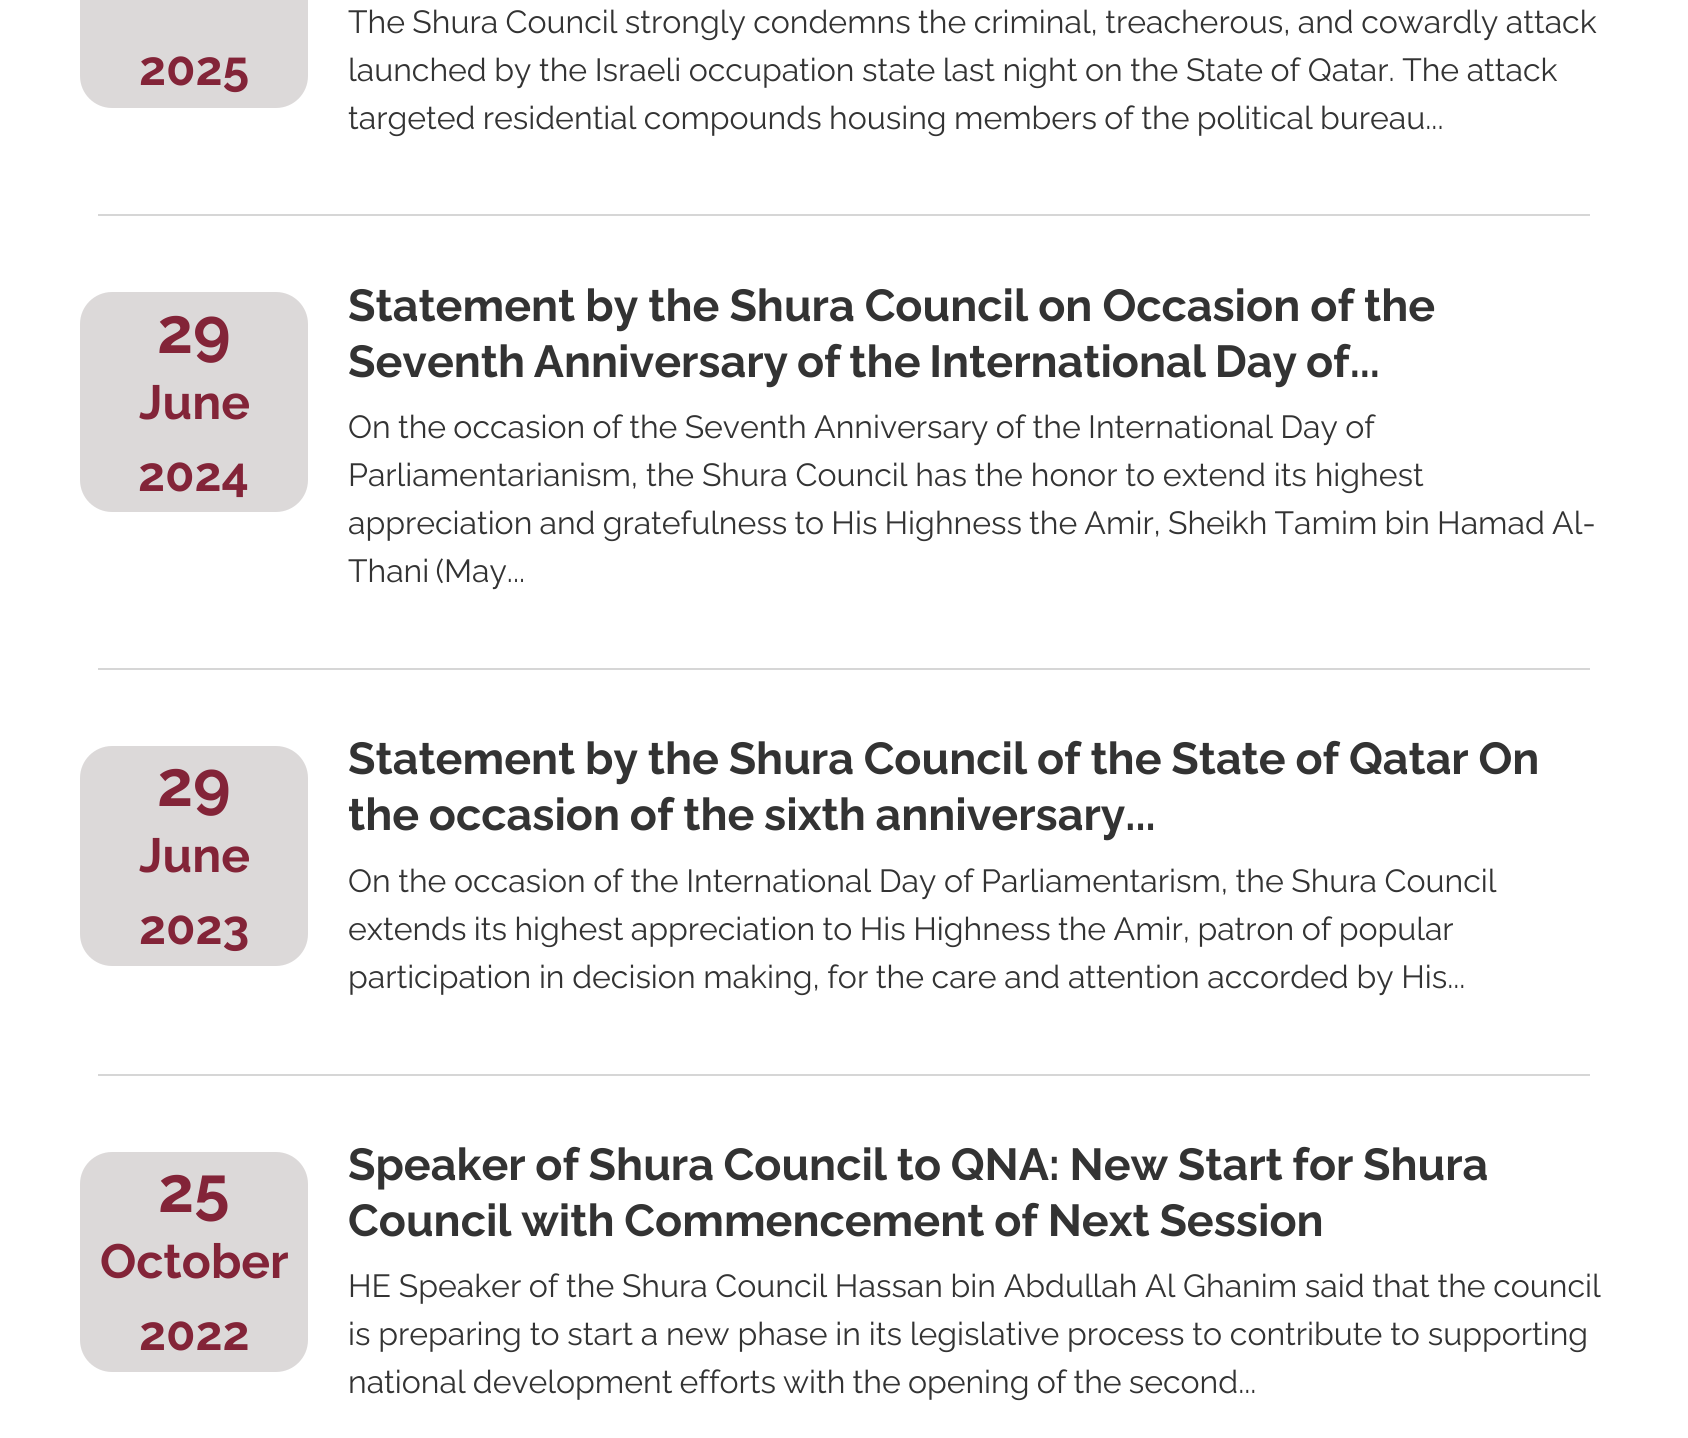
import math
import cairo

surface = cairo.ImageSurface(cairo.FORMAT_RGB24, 1688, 1438)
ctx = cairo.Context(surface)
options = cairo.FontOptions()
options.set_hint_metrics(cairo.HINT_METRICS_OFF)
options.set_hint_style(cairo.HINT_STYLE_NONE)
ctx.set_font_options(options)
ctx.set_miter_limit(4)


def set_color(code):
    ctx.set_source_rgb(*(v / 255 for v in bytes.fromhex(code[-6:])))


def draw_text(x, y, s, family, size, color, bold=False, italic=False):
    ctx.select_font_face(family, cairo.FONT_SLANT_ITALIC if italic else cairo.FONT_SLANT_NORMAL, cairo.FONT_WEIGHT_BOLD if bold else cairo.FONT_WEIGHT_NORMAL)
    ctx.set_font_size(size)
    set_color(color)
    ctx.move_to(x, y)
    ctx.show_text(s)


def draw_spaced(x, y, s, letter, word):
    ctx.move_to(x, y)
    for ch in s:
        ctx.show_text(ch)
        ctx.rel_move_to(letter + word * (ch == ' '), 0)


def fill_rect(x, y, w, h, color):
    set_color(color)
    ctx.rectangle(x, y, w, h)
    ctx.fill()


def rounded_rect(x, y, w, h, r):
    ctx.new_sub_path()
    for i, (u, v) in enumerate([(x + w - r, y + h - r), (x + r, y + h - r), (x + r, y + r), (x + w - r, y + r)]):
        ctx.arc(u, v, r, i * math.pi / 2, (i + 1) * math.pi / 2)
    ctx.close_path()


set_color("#ffffff")
ctx.paint()
set_color("#dcd9d9")
rounded_rect(80, -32, 228, 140, 32)
ctx.fill()
draw_text(139, 85, "2025", "Raleway", 48, "#832438", bold=True)
ctx.select_font_face("Raleway")
ctx.set_font_size(32)
set_color("#333333")
draw_spaced(348, 33, "The Shura Council strongly condemns the criminal, treacherous, and cowardly attack", 0, -0.75)
draw_spaced(348, 81, "launched by the Israeli occupation state last night on the State of Qatar. The attack", 0, -0.6)
draw_spaced(348, 129, "targeted residential compounds housing members of the political bureau...", 0, -0.75)
fill_rect(98, 214, 1492, 2, "#d6d6d6")
set_color("#dcd9d9")
rounded_rect(80, 292, 228, 220, 32)
ctx.fill()
draw_text(157, 353, "29", "Raleway", 64, "#832438", bold=True)
draw_text(139, 419, "June", "Raleway", 48, "#832438", bold=True)
draw_text(138, 491, "2024", "Raleway", 48, "#832438", bold=True)
ctx.set_font_size(44.8)
set_color("#333333")
draw_spaced(348, 321, "Statement by the Shura Council on Occasion of the", 0, -0.75)
draw_spaced(348, 377, "Seventh Anniversary of the International Day of...", 0, -2)
ctx.select_font_face("Raleway")
ctx.set_font_size(32)
draw_spaced(348, 438, "On the occasion of the Seventh Anniversary of the International Day of", 0, -0.9)
draw_spaced(348, 486, "Parliamentarianism, the Shura Council has the honor to extend its highest", 0, -0.3)
draw_spaced(348, 534, "appreciation and gratefulness to His Highness the Amir, Sheikh Tamim bin Hamad Al-", 0, -1)
draw_spaced(348, 582, "Thani (May...", 0, -2)
fill_rect(98, 668, 1492, 2, "#d6d6d6")
set_color("#dcd9d9")
rounded_rect(80, 746, 228, 220, 32)
ctx.fill()
draw_text(157, 806, "29", "Raleway", 64, "#832438", bold=True)
draw_text(139, 872, "June", "Raleway", 48, "#832438", bold=True)
draw_text(139, 944, "2023", "Raleway", 48, "#832438", bold=True)
ctx.set_font_size(44.8)
set_color("#333333")
draw_spaced(348, 774, "Statement by the Shura Council of the State of Qatar On", 0, -1)
draw_spaced(348, 830, "the occasion of the sixth anniversary...", 0, -1)
ctx.select_font_face("Raleway")
ctx.set_font_size(32)
draw_spaced(348, 892, "On the occasion of the International Day of Parliamentarism, the Shura Council", 0, -0.6)
draw_spaced(348, 940, "extends its highest appreciation to His Highness the Amir, patron of popular", 0, -0.75)
draw_spaced(348, 988, "participation in decision making, for the care and attention accorded by His...", 0, -0.5)
fill_rect(98, 1074, 1492, 2, "#d6d6d6")
set_color("#dcd9d9")
rounded_rect(80, 1152, 228, 220, 32)
ctx.fill()
draw_text(158, 1212, "25", "Raleway", 64, "#832438", bold=True)
draw_text(100, 1278, "October", "Raleway", 48, "#832438", bold=True)
draw_text(139, 1350, "2022", "Raleway", 48, "#832438", bold=True)
ctx.set_font_size(44.8)
set_color("#333333")
draw_spaced(348, 1180, "Speaker of Shura Council to QNA: New Start for Shura", 0, -1.1)
draw_spaced(348, 1236, "Council with Commencement of Next Session", 0, -1)
ctx.select_font_face("Raleway")
ctx.set_font_size(32)
draw_spaced(348, 1297, "HE Speaker of the Shura Council Hassan bin Abdullah Al Ghanim said that the council", 0, -0.5)
draw_spaced(348, 1345, "is preparing to start a new phase in its legislative process to contribute to supporting", 0, -0.3)
draw_spaced(348, 1393, "national development efforts with the opening of the second...", 0, -1)
surface.write_to_png("output.png")
